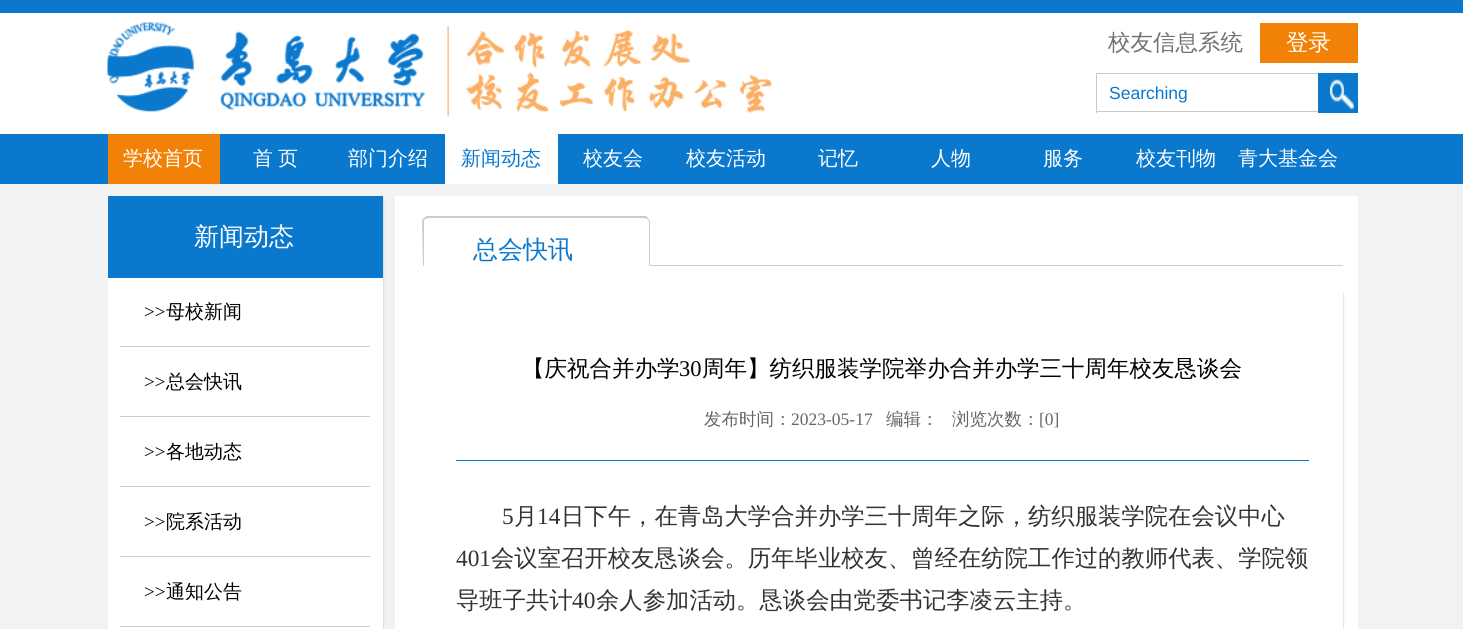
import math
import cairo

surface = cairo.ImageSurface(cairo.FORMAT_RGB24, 1463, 629)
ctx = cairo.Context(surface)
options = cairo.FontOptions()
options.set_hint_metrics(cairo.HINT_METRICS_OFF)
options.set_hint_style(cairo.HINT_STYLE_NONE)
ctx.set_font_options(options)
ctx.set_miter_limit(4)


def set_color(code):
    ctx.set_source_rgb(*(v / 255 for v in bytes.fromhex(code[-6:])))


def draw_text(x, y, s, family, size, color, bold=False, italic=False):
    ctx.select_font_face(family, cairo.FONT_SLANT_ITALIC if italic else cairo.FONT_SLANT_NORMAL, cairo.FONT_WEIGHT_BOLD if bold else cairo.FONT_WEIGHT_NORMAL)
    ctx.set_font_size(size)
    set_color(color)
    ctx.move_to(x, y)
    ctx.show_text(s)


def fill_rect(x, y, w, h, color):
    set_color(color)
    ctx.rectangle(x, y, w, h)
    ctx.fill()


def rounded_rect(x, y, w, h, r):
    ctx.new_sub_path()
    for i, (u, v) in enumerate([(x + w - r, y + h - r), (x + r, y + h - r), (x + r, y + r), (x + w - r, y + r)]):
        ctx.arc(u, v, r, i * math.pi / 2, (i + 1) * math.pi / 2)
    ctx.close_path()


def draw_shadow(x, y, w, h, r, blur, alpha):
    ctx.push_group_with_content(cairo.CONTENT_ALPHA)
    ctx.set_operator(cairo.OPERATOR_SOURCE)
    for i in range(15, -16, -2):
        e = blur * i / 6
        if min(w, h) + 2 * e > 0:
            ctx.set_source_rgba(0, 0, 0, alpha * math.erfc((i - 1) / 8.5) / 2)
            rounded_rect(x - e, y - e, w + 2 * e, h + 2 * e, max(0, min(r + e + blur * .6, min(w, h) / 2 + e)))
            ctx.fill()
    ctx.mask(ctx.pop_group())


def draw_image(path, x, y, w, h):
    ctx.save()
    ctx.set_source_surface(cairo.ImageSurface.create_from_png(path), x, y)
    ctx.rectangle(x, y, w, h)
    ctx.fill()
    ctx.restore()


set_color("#f2f2f2")
ctx.paint()
fill_rect(0, 13, 1463, 121, "#ffffff")
fill_rect(0, 0, 1463, 13, "#0a78cd")
draw_image("assets/img1.png", 107, 22, 665, 95)
draw_text(1108, 50, "校友信息系统", "WenQuanYi Zen Hei Medium", 22.5, "#727272")
fill_rect(1260, 23, 98, 40, "#f28107")
draw_text(1286, 50, "登录", "WenQuanYi Zen Hei Medium", 22.5, "#ffffff")
fill_rect(1096, 73, 230, 1, "#c9c9c9")
fill_rect(1096, 111, 230, 1, "#c9c9c9")
fill_rect(1096, 73, 1, 40, "#c9c9c9")
draw_text(1109, 99, "Searching", "Liberation Sans", 17.5, "#0a78cd")
fill_rect(1318, 73, 40, 40, "#0a78cd")
draw_image("assets/img2.png", 1330, 79, 24, 31)
fill_rect(0, 134, 1463, 50, "#0a78cd")
fill_rect(108, 134, 112, 50, "#f28107")
draw_text(123, 165, "学校首页", "WenQuanYi Zen Hei Medium", 20, "#ffffff")
draw_text(253, 165, "首", "WenQuanYi Zen Hei Medium", 20, "#ffffff")
draw_text(278, 165, "页", "WenQuanYi Zen Hei Medium", 20, "#ffffff")
draw_text(348, 165, "部门介绍", "WenQuanYi Zen Hei Medium", 20, "#ffffff")
fill_rect(445, 134, 113, 50, "#ffffff")
draw_text(461, 165, "新闻动态", "WenQuanYi Zen Hei Medium", 20, "#0a78cd")
draw_text(583, 165, "校友会", "WenQuanYi Zen Hei Medium", 20, "#ffffff")
draw_text(686, 165, "校友活动", "WenQuanYi Zen Hei Medium", 20, "#ffffff")
draw_text(818, 165, "记忆", "WenQuanYi Zen Hei Medium", 20, "#ffffff")
draw_text(931, 165, "人物", "WenQuanYi Zen Hei Medium", 20, "#ffffff")
draw_text(1043, 165, "服务", "WenQuanYi Zen Hei Medium", 20, "#ffffff")
draw_text(1136, 165, "校友刊物", "WenQuanYi Zen Hei Medium", 20, "#ffffff")
draw_text(1238, 165, "青大基金会", "WenQuanYi Zen Hei Medium", 20, "#ffffff")
set_color("#000000")
draw_shadow(109, 198, 275, 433, 0, 0.5, 0.1)
fill_rect(108, 278, 275, 351, "#ffffff")
fill_rect(108, 196, 275, 82, "#0a78cd")
draw_text(194, 245, "新闻动态", "WenQuanYi Zen Hei Medium", 25, "#ffffff")
fill_rect(120, 346, 250, 1, "#cccccc")
draw_text(144, 318, ">>", "Liberation Serif", 19, "#000000")
draw_text(166, 318, "母校新闻", "WenQuanYi Zen Hei Medium", 19, "#000000")
fill_rect(120, 416, 250, 1, "#cccccc")
draw_text(144, 388, ">>", "Liberation Serif", 19, "#000000")
draw_text(166, 388, "总会快讯", "WenQuanYi Zen Hei Medium", 19, "#000000")
fill_rect(120, 486, 250, 1, "#cccccc")
draw_text(144, 458, ">>", "Liberation Serif", 19, "#000000")
draw_text(166, 458, "各地动态", "WenQuanYi Zen Hei Medium", 19, "#000000")
fill_rect(120, 556, 250, 1, "#cccccc")
draw_text(144, 528, ">>", "Liberation Serif", 19, "#000000")
draw_text(166, 528, "院系活动", "WenQuanYi Zen Hei Medium", 19, "#000000")
fill_rect(120, 626, 250, 1, "#cccccc")
draw_text(144, 598, ">>", "Liberation Serif", 19, "#000000")
draw_text(166, 598, "通知公告", "WenQuanYi Zen Hei Medium", 19, "#000000")
fill_rect(395, 196, 963, 433, "#ffffff")
fill_rect(423, 265, 920, 1, "#cccccc")
ctx.new_path()
ctx.move_to(429, 218)
ctx.line_to(425, 219)
ctx.line_to(424, 218)
ctx.line_to(427, 216)
ctx.line_to(646, 216)
ctx.line_to(648, 218)
ctx.line_to(647, 219)
ctx.line_to(644, 218)
ctx.close_path()
ctx.fill()
ctx.new_path()
ctx.move_to(650, 266)
ctx.line_to(650, 222)
ctx.curve_to(650, 221, 649, 219, 648, 218)
ctx.line_to(647, 219)
ctx.line_to(649, 221)
ctx.line_to(649, 265)
ctx.close_path()
ctx.fill()
set_color("#ffffff")
ctx.new_path()
ctx.move_to(650, 266)
ctx.line_to(423, 266)
ctx.line_to(424, 265)
ctx.line_to(649, 265)
ctx.close_path()
ctx.fill()
set_color("#cccccc")
ctx.new_path()
ctx.move_to(422, 220)
ctx.line_to(424, 218)
ctx.line_to(425, 219)
ctx.line_to(424, 221)
ctx.line_to(424, 265)
ctx.line_to(423, 266)
ctx.close_path()
ctx.fill()
draw_text(473, 258, "总会快讯", "WenQuanYi Zen Hei Medium", 25, "#0a78cd")
set_color("#000000")
draw_shadow(424, 293, 920, 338, 0, 0.5, 0.1)
fill_rect(423, 292, 920, 337, "#ffffff")
draw_text(522, 376, "【庆祝合并办学", "WenQuanYi Zen Hei Medium", 22.5, "#000000")
draw_text(679, 376, "30", "Liberation Serif", 22.5, "#000000")
draw_text(702, 376, "周年】纺织服装学院举办合并办学三十周年校友恳谈会", "WenQuanYi Zen Hei Medium", 22.5, "#000000")
draw_text(704, 425, "发布时间：", "WenQuanYi Zen Hei Medium", 17.5, "#666666")
draw_text(791, 425, "2023-05-17", "Liberation Serif", 17.5, "#666666")
draw_text(886, 425, "编辑：", "WenQuanYi Zen Hei Medium", 17.5, "#666666")
draw_text(952, 425, "浏览次数：", "WenQuanYi Zen Hei Medium", 17.5, "#666666")
draw_text(1039, 425, "[0]", "Liberation Serif", 17.5, "#666666")
fill_rect(456, 460, 853, 1, "#0a78cd")
draw_text(502, 524, "5", "Liberation Serif", 23.35, "#333333")
draw_text(514, 524, "月", "WenQuanYi Zen Hei Medium", 23.35, "#333333")
draw_text(537, 524, "14", "Liberation Serif", 23.35, "#333333")
draw_text(561, 524, "日下午，在青岛大学合并办学三十周年之际，纺织服装学院在会议中心", "WenQuanYi Zen Hei Medium", 23.35, "#333333")
draw_text(456, 566, "401", "Liberation Serif", 23.35, "#333333")
draw_text(491, 566, "会议室召开校友恳谈会。历年毕业校友、曾经在纺院工作过的教师代表、学院领", "WenQuanYi Zen Hei Medium", 23.35, "#333333")
draw_text(456, 608, "导班子共计", "WenQuanYi Zen Hei Medium", 23.35, "#333333")
draw_text(572, 608, "40", "Liberation Serif", 23.35, "#333333")
draw_text(596, 608, "余人参加活动。恳谈会由党委书记李凌云主持。", "WenQuanYi Zen Hei Medium", 23.35, "#333333")
surface.write_to_png("output.png")
